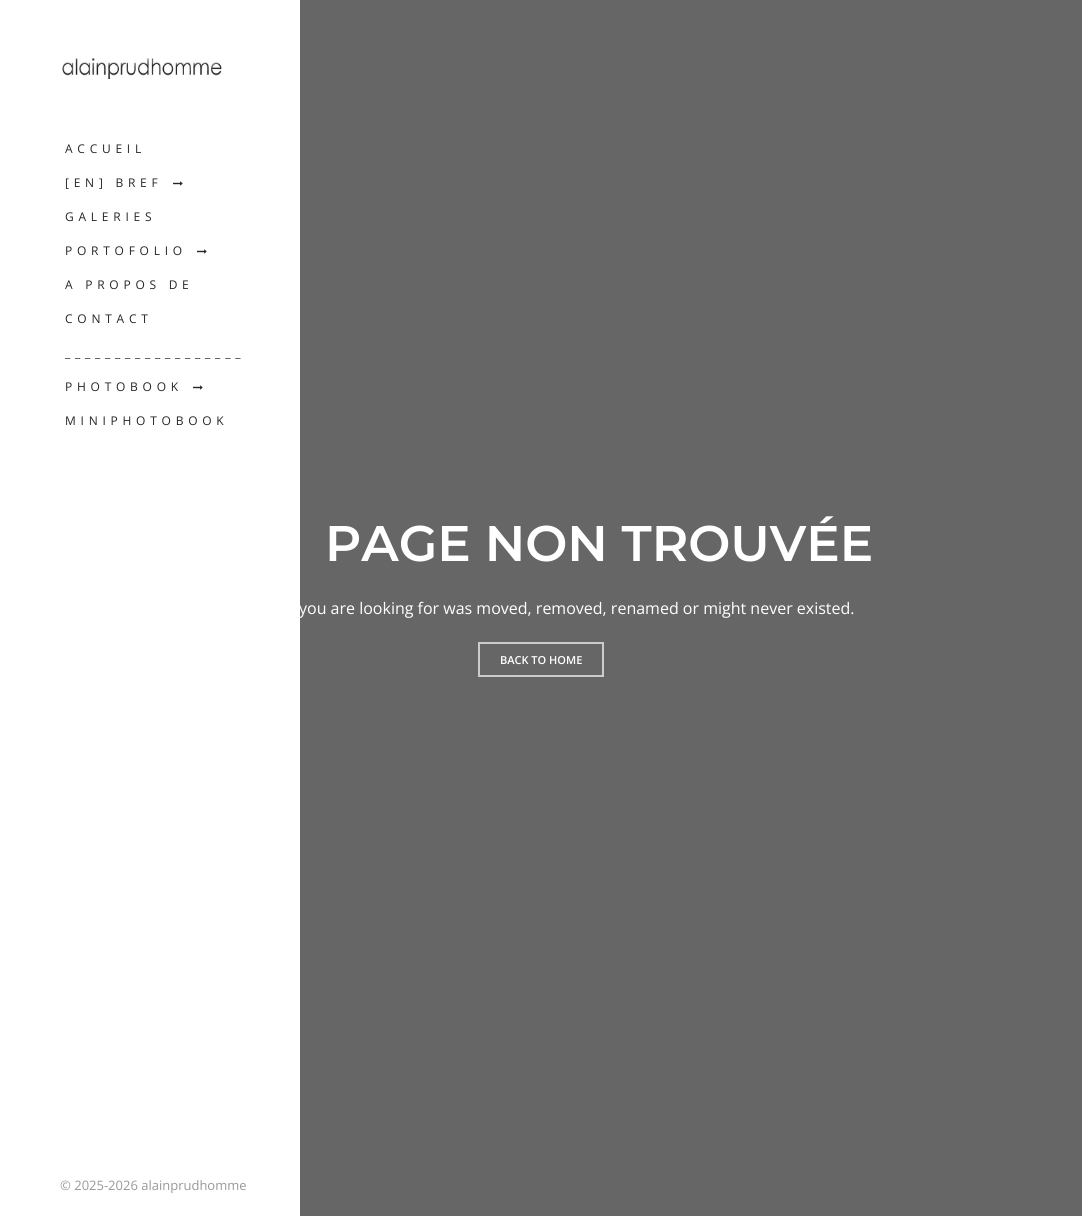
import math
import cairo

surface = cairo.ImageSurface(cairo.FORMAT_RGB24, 1082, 1216)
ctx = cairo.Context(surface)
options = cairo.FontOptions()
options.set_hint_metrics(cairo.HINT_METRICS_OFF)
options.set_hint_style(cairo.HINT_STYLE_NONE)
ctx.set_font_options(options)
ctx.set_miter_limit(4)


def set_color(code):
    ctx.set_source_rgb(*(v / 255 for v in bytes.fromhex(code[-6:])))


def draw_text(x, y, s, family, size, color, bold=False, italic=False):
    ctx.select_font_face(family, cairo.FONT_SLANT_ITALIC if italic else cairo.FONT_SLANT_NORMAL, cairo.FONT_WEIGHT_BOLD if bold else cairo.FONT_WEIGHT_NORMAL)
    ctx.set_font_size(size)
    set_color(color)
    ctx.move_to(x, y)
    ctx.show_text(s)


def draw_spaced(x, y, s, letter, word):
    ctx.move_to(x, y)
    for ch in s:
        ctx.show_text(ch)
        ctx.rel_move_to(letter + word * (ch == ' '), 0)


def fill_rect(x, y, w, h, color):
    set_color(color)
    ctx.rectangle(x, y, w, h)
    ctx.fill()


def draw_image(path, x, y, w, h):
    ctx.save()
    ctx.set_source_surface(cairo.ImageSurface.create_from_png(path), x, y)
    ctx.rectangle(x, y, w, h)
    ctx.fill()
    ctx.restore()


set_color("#666666")
ctx.paint()
fill_rect(0, 0, 300, 1216, "#ffffff")
draw_image("assets/img1.png", 62, 58, 160, 22)
ctx.select_font_face("Open Sans")
ctx.set_font_size(12)
set_color("#262626")
draw_spaced(65, 153, "ACCUEIL", 4.75, 0)
draw_spaced(65, 187, "[EN] BREF", 4.75, 0)
draw_image("assets/img2.png", 173, 181, 10, 5)
draw_spaced(65, 221, "GALERIES", 4.75, 0)
draw_spaced(65, 255, "PORTOFOLIO", 4.75, 0)
draw_image("assets/img2.png", 197, 249, 10, 5)
draw_spaced(65, 289, "A PROPOS DE", 4.75, 0)
draw_spaced(65, 323, "CONTACT", 4.75, 0)
draw_spaced(65, 357, "__________________", 4.75, 0)
draw_spaced(65, 391, "PHOTOBOOK", 4.75, 0)
draw_image("assets/img2.png", 193, 385, 10, 5)
draw_spaced(65, 425, "MINIPHOTOBOOK", 4.75, 0)
draw_text(60, 1190, "© 2025-2026 alainprudhomme", "Open Sans", 13, "#999999")
draw_text(325, 561, "PAGE NON TROUVÉE", "Montserrat SemiBold", 50, "#ffffff")
draw_text(299, 614, "you are looking for was moved, removed, renamed or might never existed.", "Open Sans", 16, "#ffffff")
ctx.rectangle(479, 643, 124, 33)
set_color("#cccccc")
ctx.stroke()
draw_text(500, 664, "BACK TO HOME", "Open Sans SemiBold", 11, "#ffffff")
surface.write_to_png("output.png")
